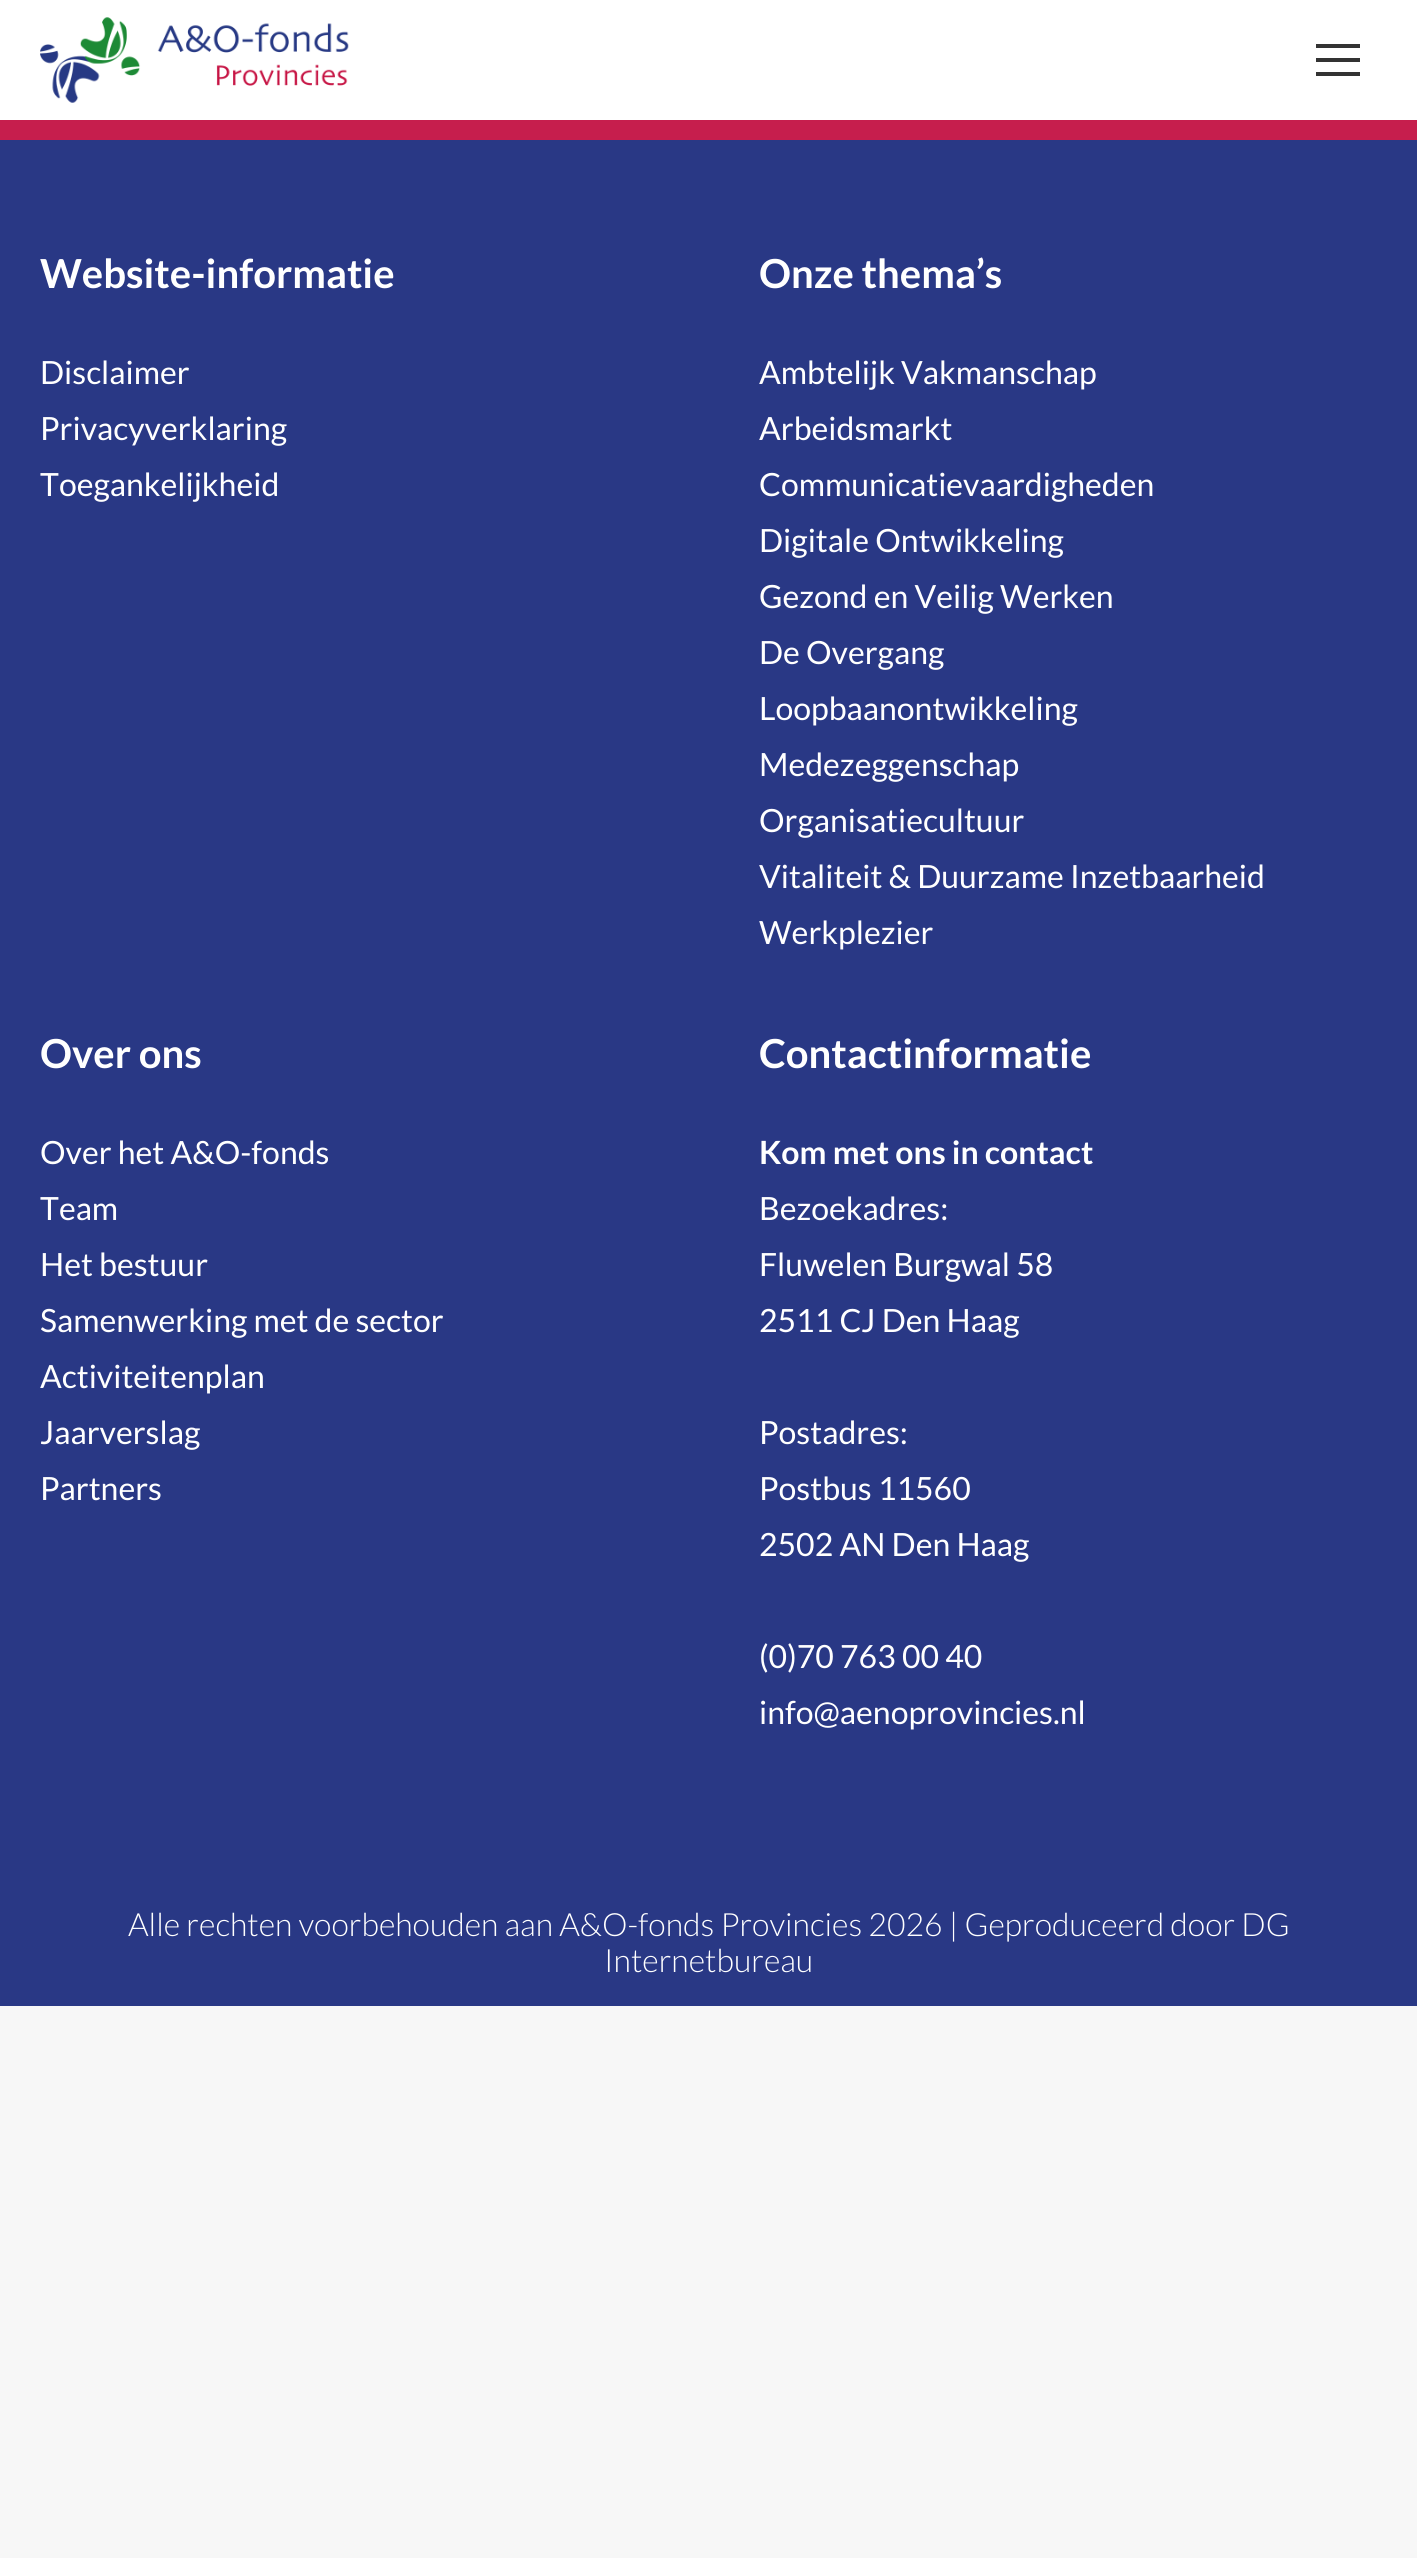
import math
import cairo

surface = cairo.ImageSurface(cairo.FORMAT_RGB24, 1417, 2558)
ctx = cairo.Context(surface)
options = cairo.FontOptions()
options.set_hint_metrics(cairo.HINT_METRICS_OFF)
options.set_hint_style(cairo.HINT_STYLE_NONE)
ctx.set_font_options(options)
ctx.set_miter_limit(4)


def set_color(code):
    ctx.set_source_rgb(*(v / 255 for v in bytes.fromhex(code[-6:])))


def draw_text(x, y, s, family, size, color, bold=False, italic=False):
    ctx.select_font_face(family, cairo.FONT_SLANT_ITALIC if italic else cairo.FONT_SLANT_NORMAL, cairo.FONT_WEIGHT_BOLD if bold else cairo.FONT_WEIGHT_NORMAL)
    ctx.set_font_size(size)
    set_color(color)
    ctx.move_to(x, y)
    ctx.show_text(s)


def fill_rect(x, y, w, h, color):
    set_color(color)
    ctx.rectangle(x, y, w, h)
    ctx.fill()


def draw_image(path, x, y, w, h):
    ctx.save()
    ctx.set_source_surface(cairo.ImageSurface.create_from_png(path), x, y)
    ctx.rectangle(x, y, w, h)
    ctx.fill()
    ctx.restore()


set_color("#f7f7f7")
ctx.paint()
fill_rect(0, 0, 1417, 120, "#ffffff")
draw_image("assets/img1.png", 40, 17, 309, 86)
fill_rect(1316, 44, 44, 4, "#333333")
fill_rect(1316, 58, 44, 4, "#333333")
fill_rect(1316, 72, 44, 4, "#333333")
fill_rect(0, 140, 1417, 1866, "#293885")
fill_rect(0, 120, 1417, 20, "#c61e4d")
draw_text(40, 288, "Website-informatie", "Lato", 40, "#ffffff", bold=True)
draw_text(40, 384, "Disclaimer", "Lato", 32, "#ffffff")
draw_text(40, 440, "Privacyverklaring", "Lato", 32, "#ffffff")
draw_text(40, 496, "Toegankelijkheid", "Lato", 32, "#ffffff")
draw_text(759, 288, "Onze thema’s", "Lato", 40, "#ffffff", bold=True)
draw_text(759, 384, "Ambtelijk Vakmanschap", "Lato", 32, "#ffffff")
draw_text(759, 440, "Arbeidsmarkt", "Lato", 32, "#ffffff")
draw_text(759, 496, "Communicatievaardigheden", "Lato", 32, "#ffffff")
draw_text(759, 552, "Digitale Ontwikkeling", "Lato", 32, "#ffffff")
draw_text(759, 608, "Gezond en Veilig Werken", "Lato", 32, "#ffffff")
draw_text(759, 664, "De Overgang", "Lato", 32, "#ffffff")
draw_text(759, 720, "Loopbaanontwikkeling", "Lato", 32, "#ffffff")
draw_text(759, 776, "Medezeggenschap", "Lato", 32, "#ffffff")
draw_text(759, 832, "Organisatiecultuur", "Lato", 32, "#ffffff")
draw_text(759, 888, "Vitaliteit & Duurzame Inzetbaarheid", "Lato", 32, "#ffffff")
draw_text(759, 944, "Werkplezier", "Lato", 32, "#ffffff")
draw_text(40, 1068, "Over ons", "Lato", 40, "#ffffff", bold=True)
draw_text(40, 1164, "Over het A&O-fonds", "Lato", 32, "#ffffff")
draw_text(40, 1220, "Team", "Lato", 32, "#ffffff")
draw_text(40, 1276, "Het bestuur", "Lato", 32, "#ffffff")
draw_text(40, 1332, "Samenwerking met de sector", "Lato", 32, "#ffffff")
draw_text(40, 1388, "Activiteitenplan", "Lato", 32, "#ffffff")
draw_text(40, 1444, "Jaarverslag", "Lato", 32, "#ffffff")
draw_text(40, 1500, "Partners", "Lato", 32, "#ffffff")
draw_text(759, 1068, "Contactinformatie", "Lato", 40, "#ffffff", bold=True)
draw_text(759, 1164, "Kom met ons in contact", "Lato", 32, "#ffffff", bold=True)
draw_text(759, 1220, "Bezoekadres:", "Lato", 32, "#ffffff")
draw_text(759, 1276, "Fluwelen Burgwal 58", "Lato", 32, "#ffffff")
draw_text(759, 1332, "2511 CJ Den Haag", "Lato", 32, "#ffffff")
draw_text(759, 1444, "Postadres:", "Lato", 32, "#ffffff")
draw_text(759, 1500, "Postbus 11560", "Lato", 32, "#ffffff")
draw_text(759, 1556, "2502 AN Den Haag", "Lato", 32, "#ffffff")
draw_text(759, 1668, "(0)70 763 00 40", "Lato", 32, "#ffffff")
draw_text(759, 1724, "info@aenoprovincies.nl", "Lato", 32, "#ffffff")
draw_text(128, 1936, "Alle rechten voorbehouden aan A&O-fonds Provincies 2026 | Geproduceerd door DG", "Lato Light", 32, "#ffffff")
draw_text(604, 1972, "Internetbureau", "Lato Light", 32, "#ffffff")
surface.write_to_png("output.png")
